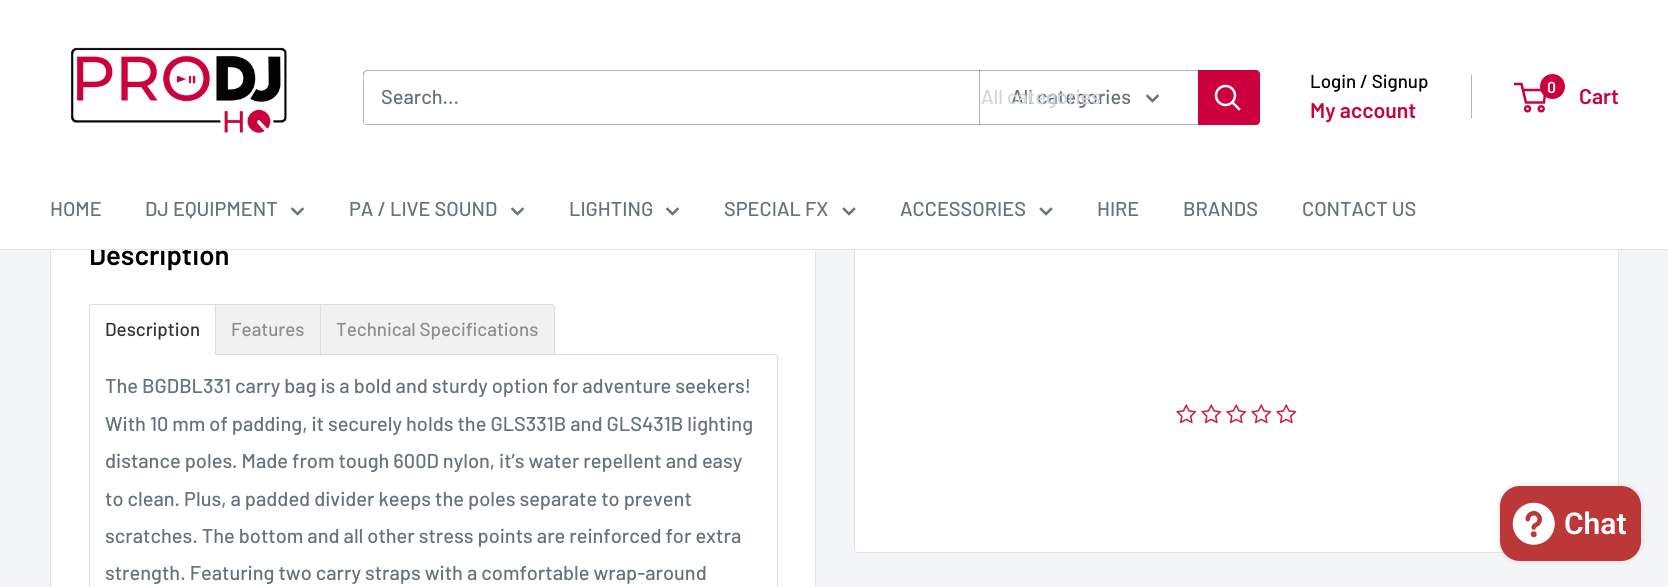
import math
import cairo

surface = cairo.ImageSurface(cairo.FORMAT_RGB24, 1668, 587)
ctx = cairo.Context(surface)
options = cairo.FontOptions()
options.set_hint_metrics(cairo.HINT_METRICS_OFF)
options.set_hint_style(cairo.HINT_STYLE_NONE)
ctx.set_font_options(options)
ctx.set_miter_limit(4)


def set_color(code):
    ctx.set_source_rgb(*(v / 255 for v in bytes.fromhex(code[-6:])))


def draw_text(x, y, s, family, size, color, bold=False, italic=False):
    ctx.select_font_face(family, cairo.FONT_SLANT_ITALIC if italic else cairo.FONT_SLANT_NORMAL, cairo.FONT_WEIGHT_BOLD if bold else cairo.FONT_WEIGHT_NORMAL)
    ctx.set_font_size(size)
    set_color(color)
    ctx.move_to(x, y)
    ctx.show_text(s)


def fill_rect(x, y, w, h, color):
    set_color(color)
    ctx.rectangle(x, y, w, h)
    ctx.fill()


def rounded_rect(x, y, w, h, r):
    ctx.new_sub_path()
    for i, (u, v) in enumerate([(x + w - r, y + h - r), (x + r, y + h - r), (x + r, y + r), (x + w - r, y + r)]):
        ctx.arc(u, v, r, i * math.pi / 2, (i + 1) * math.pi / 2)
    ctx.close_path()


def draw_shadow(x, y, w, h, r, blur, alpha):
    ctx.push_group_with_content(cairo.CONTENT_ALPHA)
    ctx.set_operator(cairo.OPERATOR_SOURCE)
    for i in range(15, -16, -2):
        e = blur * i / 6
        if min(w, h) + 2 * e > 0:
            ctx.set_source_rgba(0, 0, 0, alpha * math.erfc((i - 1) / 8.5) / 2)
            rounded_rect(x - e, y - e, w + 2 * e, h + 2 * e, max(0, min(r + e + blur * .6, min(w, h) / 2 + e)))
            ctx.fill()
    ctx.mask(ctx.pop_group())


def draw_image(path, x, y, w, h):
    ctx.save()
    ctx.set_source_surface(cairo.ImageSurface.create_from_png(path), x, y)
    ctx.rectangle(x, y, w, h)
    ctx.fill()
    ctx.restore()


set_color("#f3f5f6")
ctx.paint()
fill_rect(51, 250, 764, 337, "#ffffff")
ctx.rectangle(50.5, 195.5, 765, 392)
set_color("#e1e3e4")
ctx.set_line_width(1)
ctx.stroke()
draw_text(89, 265, "Description", "Barlow SemiBold", 27.5, "#000000")
set_color("#ffffff")
rounded_rect(854.5, -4.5, 764, 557, 3.5)
ctx.fill_preserve()
set_color("#e1e3e4")
ctx.stroke()
fill_rect(0, 0, 1668, 249, "#ffffff")
draw_image("assets/img1.png", 70, 47, 217, 86)
set_color("#b3b3b3")
ctx.new_path()
ctx.move_to(364, 124)
ctx.curve_to(365, 125, 366, 125, 367, 125)
ctx.line_to(1256, 125)
ctx.curve_to(1258, 125, 1260, 123, 1260, 121)
ctx.line_to(1260, 74)
ctx.curve_to(1260, 73, 1260, 72, 1259, 71)
ctx.line_to(1259, 112)
ctx.curve_to(1259, 114, 1261, 124, 1255, 124)
ctx.close_path()
ctx.fill()
ctx.new_path()
ctx.move_to(368, 71)
ctx.line_to(1259, 71)
ctx.curve_to(1258, 70, 1257, 70, 1256, 70)
ctx.line_to(367, 70)
ctx.curve_to(365, 70, 363, 72, 363, 74)
ctx.line_to(363, 121)
ctx.curve_to(363, 122, 363, 123, 364, 124)
ctx.line_to(364, 83)
ctx.curve_to(364, 80, 362, 71, 368, 71)
ctx.close_path()
ctx.fill()
draw_text(381, 104, "Search...", "Barlow Medium", 20, "#677279")
ctx.set_source_rgba(0, 0, 0, 0.3)
ctx.rectangle(979, 70, 1, 55)
ctx.fill()
draw_text(1011, 104, "All categories", "Barlow Medium", 20, "#677279")
draw_text(981, 104, "All categories", "Barlow Medium", 20, "#d2d6d8")
ctx.new_path()
ctx.move_to(1157.5, 96)
ctx.line_to(1152.5, 101)
ctx.line_to(1147.5, 96)
set_color("#677279")
ctx.set_line_width(2.5)
ctx.set_line_cap(cairo.LINE_CAP_SQUARE)
ctx.stroke()
set_color("#cc003c")
ctx.new_path()
ctx.move_to(1198, 70)
ctx.line_to(1256, 70)
ctx.curve_to(1258, 70, 1260, 72, 1260, 74)
ctx.line_to(1260, 121)
ctx.curve_to(1260, 123, 1258, 125, 1256, 125)
ctx.line_to(1198, 125)
ctx.close_path()
ctx.fill()
ctx.new_path()
ctx.move_to(1239, 109)
ctx.line_to(1232.5, 102.5)
set_color("#ffffff")
ctx.stroke()
ctx.arc(1225.5, 95.5, 9.5, 0, 2 * math.pi)
ctx.set_line_cap(cairo.LINE_CAP_BUTT)
ctx.stroke()
draw_text(1310, 88, "Login / Signup", "Barlow Medium", 18.75, "#000000")
fill_rect(1471, 75, 1, 43, "#b3b3b3")
draw_text(1310, 118, "My account", "Barlow SemiBold", 21.25, "#cc003c")
ctx.new_path()
ctx.arc(1527.5, 108.8, 2.5, 0, 2 * math.pi)
ctx.stroke()
ctx.arc(1541.2, 108.8, 2.5, 0, 2 * math.pi)
ctx.stroke()
ctx.new_path()
ctx.move_to(1523, 90)
ctx.line_to(1545.5, 90)
ctx.line_to(1544, 102.5)
ctx.line_to(1526, 102.5)
ctx.line_to(1521.5, 84)
ctx.line_to(1514, 84)
ctx.stroke()
ctx.arc(1552.5, 86.5, 12.5, 0, 2 * math.pi)
ctx.fill()
draw_text(1547, 93, "0", "Barlow SemiBold", 16, "#ffffff")
draw_text(1579, 104, "Cart", "Barlow SemiBold", 21.25, "#cc003c")
fill_rect(0, 249, 1668, 1, "#e1e3e4")
draw_text(50, 216, "HOME", "Barlow Medium", 20, "#677279")
draw_text(145, 216, "DJ EQUIPMENT", "Barlow Medium", 20, "#677279")
ctx.new_path()
ctx.move_to(302.5, 209)
ctx.line_to(297.5, 214)
ctx.line_to(292.5, 209)
ctx.set_line_cap(cairo.LINE_CAP_SQUARE)
ctx.stroke()
draw_text(349, 216, "PA / LIVE SOUND", "Barlow Medium", 20, "#677279")
ctx.new_path()
ctx.move_to(522.5, 209)
ctx.line_to(517.5, 214)
ctx.line_to(512.5, 209)
ctx.stroke()
draw_text(569, 216, "LIGHTING", "Barlow Medium", 20, "#677279")
ctx.new_path()
ctx.move_to(677.5, 209)
ctx.line_to(672.5, 214)
ctx.line_to(667.5, 209)
ctx.stroke()
draw_text(724, 216, "SPECIAL FX", "Barlow Medium", 20, "#677279")
ctx.new_path()
ctx.move_to(854, 209)
ctx.line_to(849, 214)
ctx.line_to(844, 209)
ctx.stroke()
draw_text(900, 216, "ACCESSORIES", "Barlow Medium", 20, "#677279")
ctx.new_path()
ctx.move_to(1051, 209)
ctx.line_to(1046, 214)
ctx.line_to(1041, 209)
ctx.stroke()
draw_text(1097, 216, "HIRE", "Barlow Medium", 20, "#677279")
draw_text(1183, 216, "BRANDS", "Barlow Medium", 20, "#677279")
draw_text(1302, 216, "CONTACT US", "Barlow Medium", 20, "#677279")
ctx.new_path()
ctx.move_to(89.5, 354.5)
ctx.line_to(774, 354.5)
ctx.curve_to(776, 354.5, 777.5, 356, 777.5, 358)
ctx.line_to(777.5, 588)
ctx.curve_to(777.5, 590, 776, 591.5, 774, 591.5)
ctx.line_to(93, 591.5)
ctx.curve_to(91, 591.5, 89.5, 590, 89.5, 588)
ctx.close_path()
set_color("#dddddd")
ctx.set_line_width(1)
ctx.set_line_cap(cairo.LINE_CAP_BUTT)
ctx.stroke()
set_color("#ffffff")
ctx.new_path()
ctx.move_to(92.5, 305)
ctx.line_to(215, 305)
ctx.line_to(215, 355)
ctx.line_to(90, 355)
ctx.line_to(90, 307.5)
ctx.curve_to(90, 306, 91, 305, 92.5, 305)
ctx.close_path()
ctx.fill()
set_color("#dddddd")
ctx.set_fill_rule(cairo.FILL_RULE_EVEN_ODD)
ctx.new_path()
ctx.move_to(92, 304)
ctx.line_to(216, 304)
ctx.line_to(216, 355)
ctx.line_to(89, 355)
ctx.line_to(89, 308)
ctx.curve_to(89, 305, 90, 304, 92, 304)
ctx.close_path()
ctx.move_to(92, 305)
ctx.line_to(215, 305)
ctx.line_to(215, 355)
ctx.line_to(90, 355)
ctx.line_to(90, 308)
ctx.curve_to(90, 306, 91, 305, 92, 305)
ctx.close_path()
ctx.fill()
draw_text(105, 336, "Description", "Barlow Medium", 18.75, "#333333")
fill_rect(216, 305, 104, 49, "#f1f1f1")
fill_rect(216, 304, 104, 1, "#dddddd")
draw_text(231, 336, "Features", "Barlow Medium", 18.75, "#8d8d8d")
set_color("#f1f1f1")
ctx.new_path()
ctx.move_to(320.5, 304.5)
ctx.line_to(551, 304.5)
ctx.curve_to(553, 304.5, 554.5, 306, 554.5, 308)
ctx.line_to(554.5, 354.5)
ctx.line_to(320.5, 354.5)
ctx.close_path()
ctx.fill_preserve()
set_color("#dddddd")
ctx.stroke()
draw_text(336, 336, "Technical Specifications", "Barlow Medium", 18.75, "#8d8d8d")
draw_text(105, 393, "The BGDBL331 carry bag is a bold and sturdy option for adventure seekers!", "Barlow Medium", 20, "#677279")
draw_text(105, 431, "With 10 mm of padding, it securely holds the GLS331B and GLS431B lighting", "Barlow Medium", 20, "#677279")
draw_text(105, 468, "distance poles. Made from tough 600D nylon, it’s water repellent and easy", "Barlow Medium", 20, "#677279")
draw_text(105, 506, "to clean. Plus, a padded divider keeps the poles separate to prevent", "Barlow Medium", 20, "#677279")
draw_text(105, 543, "scratches. The bottom and all other stress points are reinforced for extra", "Barlow Medium", 20, "#677279")
draw_text(105, 580, "strength. Featuring two carry straps with a comfortable wrap-around", "Barlow Medium", 20, "#677279")
draw_image("assets/img2.png", 1176, 404, 21, 20)
draw_image("assets/img2.png", 1201, 404, 21, 20)
draw_image("assets/img2.png", 1226, 404, 21, 20)
draw_image("assets/img2.png", 1251, 404, 21, 20)
draw_image("assets/img2.png", 1276, 404, 21, 20)
set_color("#000000")
draw_shadow(1500, 486, 141, 75, 20, 3, 0.15)
set_color("#bc3737")
rounded_rect(1500, 486, 141, 75, 20)
ctx.fill()
draw_image("assets/img3.png", 1512, 502, 43, 43)
draw_text(1564, 534, "Chat", "Roboto SemiBold", 30, "#ffffff")
surface.write_to_png("output.png")
